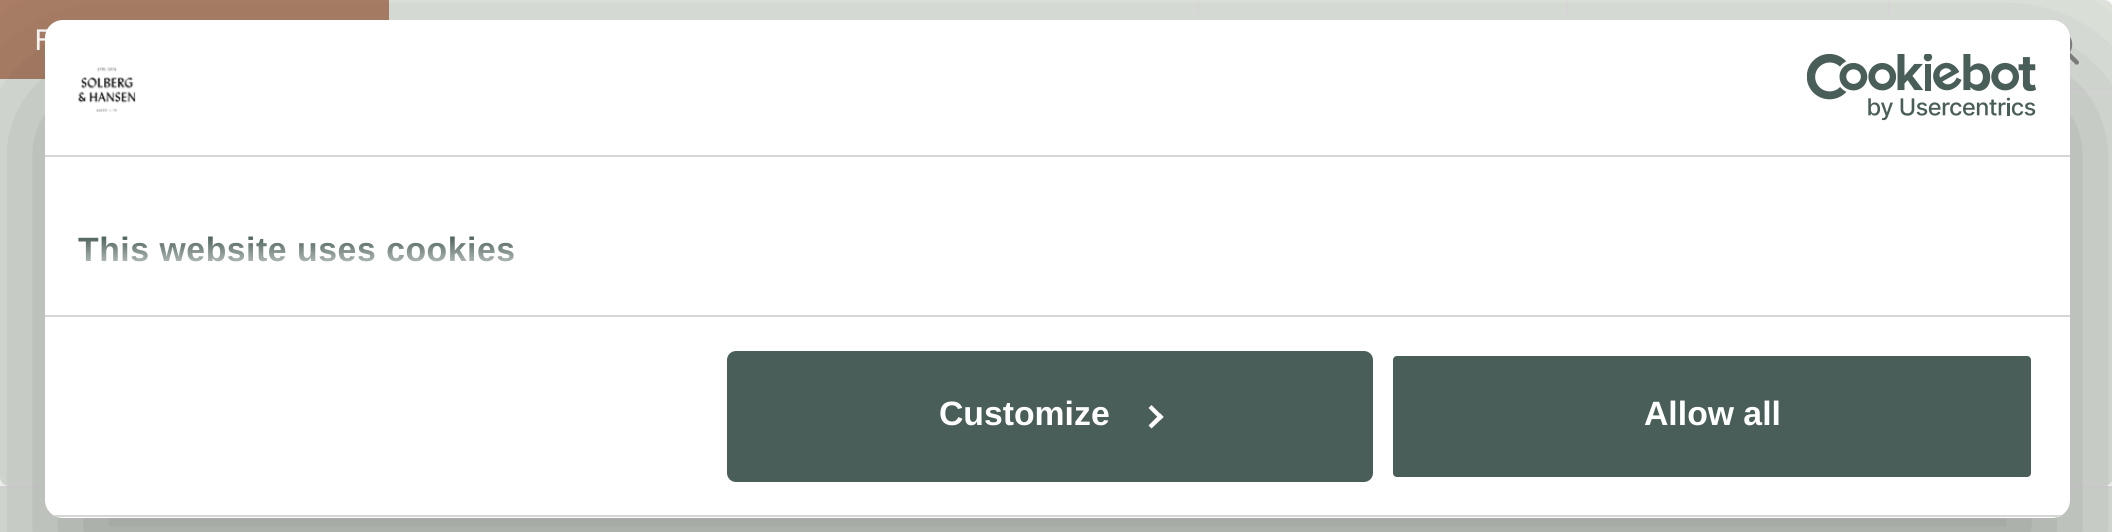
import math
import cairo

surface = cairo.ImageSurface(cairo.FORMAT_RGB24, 2112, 532)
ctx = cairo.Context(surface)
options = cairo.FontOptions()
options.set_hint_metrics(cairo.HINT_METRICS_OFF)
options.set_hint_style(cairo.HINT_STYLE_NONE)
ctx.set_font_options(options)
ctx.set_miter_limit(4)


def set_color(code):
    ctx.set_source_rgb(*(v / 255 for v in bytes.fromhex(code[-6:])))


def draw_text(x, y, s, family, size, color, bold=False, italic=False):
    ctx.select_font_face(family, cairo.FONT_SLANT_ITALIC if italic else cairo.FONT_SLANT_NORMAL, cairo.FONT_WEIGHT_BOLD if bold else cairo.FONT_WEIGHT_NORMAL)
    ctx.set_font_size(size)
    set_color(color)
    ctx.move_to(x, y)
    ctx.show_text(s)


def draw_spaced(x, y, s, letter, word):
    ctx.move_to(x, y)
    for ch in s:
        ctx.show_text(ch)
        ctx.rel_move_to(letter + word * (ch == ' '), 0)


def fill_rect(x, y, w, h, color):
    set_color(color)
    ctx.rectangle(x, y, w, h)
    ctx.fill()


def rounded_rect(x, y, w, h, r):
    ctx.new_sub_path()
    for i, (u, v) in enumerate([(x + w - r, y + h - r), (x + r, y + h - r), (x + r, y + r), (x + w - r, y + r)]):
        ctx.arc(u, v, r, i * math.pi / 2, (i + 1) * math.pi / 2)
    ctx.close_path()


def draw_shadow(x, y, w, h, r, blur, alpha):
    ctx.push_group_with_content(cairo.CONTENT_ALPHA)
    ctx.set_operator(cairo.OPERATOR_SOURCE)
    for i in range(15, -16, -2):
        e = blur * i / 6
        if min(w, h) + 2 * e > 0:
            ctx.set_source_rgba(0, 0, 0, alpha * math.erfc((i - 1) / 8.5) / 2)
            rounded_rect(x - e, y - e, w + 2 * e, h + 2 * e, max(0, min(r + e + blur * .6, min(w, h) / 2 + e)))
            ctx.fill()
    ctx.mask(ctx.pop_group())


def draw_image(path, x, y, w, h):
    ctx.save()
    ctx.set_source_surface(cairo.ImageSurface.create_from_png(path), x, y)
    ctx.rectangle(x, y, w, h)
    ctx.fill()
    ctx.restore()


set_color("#ffffff")
ctx.paint()
set_color("#dfe4dd")
rounded_rect(0, 0, 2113, 486, 9)
ctx.fill()
fill_rect(0, 0, 389, 79, "#ac8067")
ctx.select_font_face("GT America")
ctx.set_font_size(29)
set_color("#ffffff")
draw_spaced(34, 50, "F", 2, 0)
fill_rect(2070, 88, 42, 2, "#e0e0e0")
fill_rect(1197, 0, 2, 20, "#e0e0e0")
fill_rect(1566, 0, 2, 20, "#e0e0e0")
fill_rect(1888, 0, 2, 20, "#e0e0e0")
draw_image("assets/img1.png", 2069, 35, 10, 30)
fill_rect(0, 488, 2112, 44, "#dfe4dd")
fill_rect(0, 486, 2112, 2, "#e0e0e0")
set_color("#000000")
draw_shadow(45, 92, 2025, 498, 18, 76.5, 0.3)
set_color("#ffffff")
rounded_rect(45, 20, 2025, 498, 18)
ctx.fill()
fill_rect(45, 155, 2025, 2, "#d6d6d6")
draw_image("assets/img2.png", 78, 67, 58, 45)
draw_image("assets/img3.png", 1807, 54, 229, 67)
fill_rect(45, 315, 2025, 2, "#d6d6d6")
ctx.select_font_face("Liberation Sans", cairo.FONT_SLANT_NORMAL, cairo.FONT_WEIGHT_BOLD)
ctx.set_font_size(33.75)
set_color("#495e58")
draw_spaced(78, 261, "This website uses cookies", 0.55, 0)
gradient = cairo.LinearGradient(1043, 314, 1043, 235)
gradient.add_color_stop_rgba(0, 1, 1, 1, 1)
gradient.add_color_stop_rgba(0.5, 1, 1, 1, 0.8)
gradient.add_color_stop_rgba(1, 1, 1, 1, 0)
ctx.set_source(gradient)
ctx.rectangle(78, 236, 436, 26)
ctx.fill()
ctx.save()
rounded_rect(45, 20, 2025, 498, 18)
ctx.clip()
fill_rect(45, 515, 2025, 2, "#d6d6d6")
ctx.restore()
set_color("#495e58")
rounded_rect(729.5, 353.5, 641, 126, 6.5)
ctx.fill_preserve()
ctx.set_line_width(5)
ctx.stroke()
draw_text(939, 425, "Customize", "Liberation Sans", 33.75, "#ffffff", bold=True)
ctx.new_path()
ctx.move_to(1151.5, 405)
ctx.line_to(1163.5, 417)
ctx.line_to(1160.5, 420)
ctx.line_to(1148.5, 408)
ctx.close_path()
ctx.fill()
ctx.new_path()
ctx.move_to(1160.5, 413.5)
ctx.line_to(1163.5, 417)
ctx.line_to(1151.5, 428.5)
ctx.line_to(1148.5, 425.5)
ctx.close_path()
ctx.fill()
set_color("#495e58")
rounded_rect(1390.5, 353.5, 643, 126, 6.5)
ctx.fill_preserve()
set_color("#ffffff")
ctx.stroke()
draw_text(1644, 425, "Allow all", "Liberation Sans", 33.75, "#ffffff", bold=True)
surface.write_to_png("output.png")
